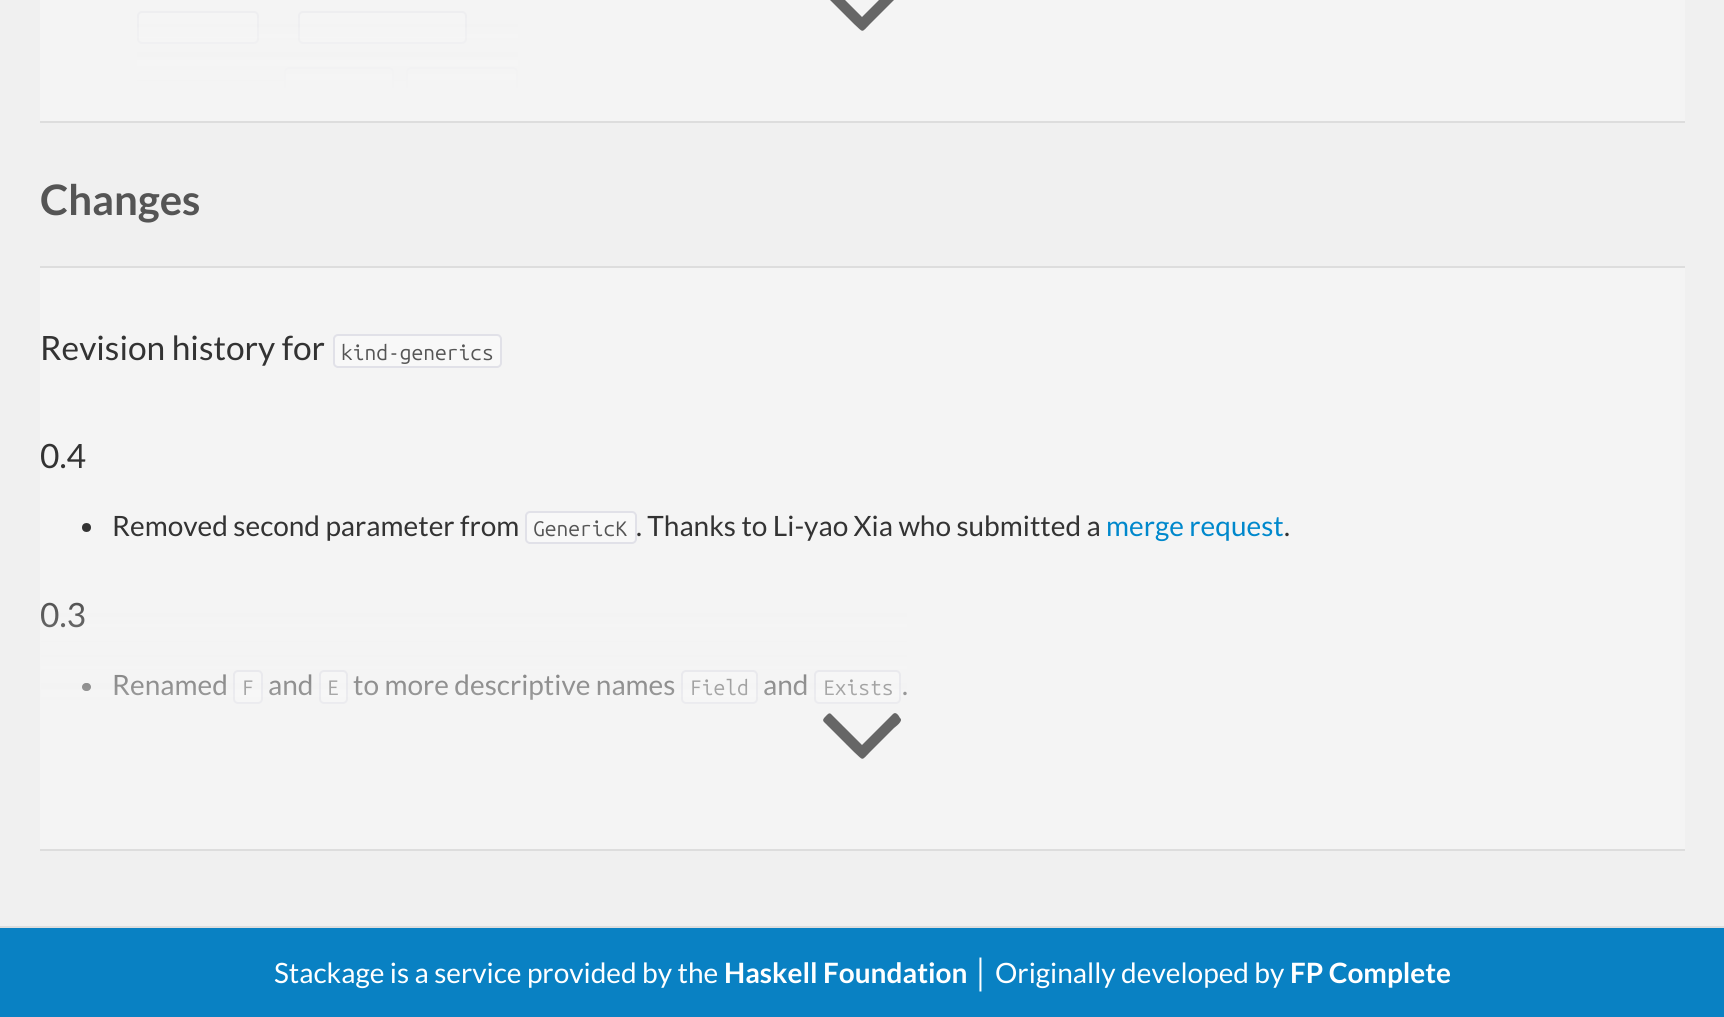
import math
import cairo

surface = cairo.ImageSurface(cairo.FORMAT_RGB24, 1724, 1017)
ctx = cairo.Context(surface)
options = cairo.FontOptions()
options.set_hint_metrics(cairo.HINT_METRICS_OFF)
options.set_hint_style(cairo.HINT_STYLE_NONE)
ctx.set_font_options(options)
ctx.set_miter_limit(4)


def set_color(code):
    ctx.set_source_rgb(*(v / 255 for v in bytes.fromhex(code[-6:])))


def draw_text(x, y, s, family, size, color, bold=False, italic=False):
    ctx.select_font_face(family, cairo.FONT_SLANT_ITALIC if italic else cairo.FONT_SLANT_NORMAL, cairo.FONT_WEIGHT_BOLD if bold else cairo.FONT_WEIGHT_NORMAL)
    ctx.set_font_size(size)
    set_color(color)
    ctx.move_to(x, y)
    ctx.show_text(s)


def fill_rect(x, y, w, h, color):
    set_color(color)
    ctx.rectangle(x, y, w, h)
    ctx.fill()


def rounded_rect(x, y, w, h, r):
    ctx.new_sub_path()
    for i, (u, v) in enumerate([(x + w - r, y + h - r), (x + r, y + h - r), (x + r, y + r), (x + w - r, y + r)]):
        ctx.arc(u, v, r, i * math.pi / 2, (i + 1) * math.pi / 2)
    ctx.close_path()


set_color("#f0f0f0")
ctx.paint()
fill_rect(40, 0, 1645, 121, "#f4f4f4")
fill_rect(40, 121, 1645, 2, "#dddddd")
set_color("#f8f8f8")
rounded_rect(138, 12, 120, 31, 4)
ctx.fill_preserve()
set_color("#e1e1e8")
ctx.stroke()
set_color("#f8f8f8")
rounded_rect(299, 12, 167, 31, 4)
ctx.fill_preserve()
set_color("#e1e1e8")
ctx.stroke()
set_color("#f8f8f8")
ctx.new_path()
ctx.move_to(289, 67)
ctx.line_to(389, 67)
ctx.curve_to(392, 67, 394, 69, 394, 72)
ctx.line_to(394, 93)
ctx.line_to(284, 93)
ctx.line_to(284, 72)
ctx.curve_to(284, 69, 286, 67, 289, 67)
ctx.close_path()
ctx.fill()
ctx.save()
ctx.rectangle(40, 0, 1645, 93)
ctx.clip()
rounded_rect(285, 68, 108, 31, 4)
set_color("#e1e1e8")
ctx.stroke()
ctx.restore()
ctx.new_path()
ctx.move_to(411, 67)
ctx.line_to(513, 67)
ctx.curve_to(516, 67, 518, 69, 518, 72)
ctx.line_to(518, 93)
ctx.line_to(406, 93)
ctx.line_to(406, 72)
ctx.curve_to(406, 69, 408, 67, 411, 67)
ctx.close_path()
ctx.fill()
ctx.save()
ctx.rectangle(40, 0, 1645, 93)
ctx.clip()
rounded_rect(407, 68, 110, 31, 4)
set_color("#e1e1e8")
ctx.stroke()
ctx.restore()
gradient = cairo.LinearGradient(863, -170, 863, 93)
gradient.add_color_stop_rgba(0, 0.957, 0.957, 0.957, 0)
gradient.add_color_stop_rgba(1, 0.957, 0.957, 0.957, 1)
ctx.set_source(gradient)
ctx.rectangle(137, 11, 381, 82)
ctx.fill()
set_color("#666666")
ctx.new_path()
ctx.move_to(900, -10)
ctx.curve_to(904, -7, 895, -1, 894, 0)
ctx.line_to(870, 24)
ctx.curve_to(861, 33, 864, 33, 854, 24)
ctx.line_to(824, -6)
ctx.curve_to(822, -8, 824, -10, 825, -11)
ctx.curve_to(827, -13, 829, -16, 831, -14)
ctx.line_to(862, 17)
ctx.line_to(893, -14)
ctx.curve_to(896, -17, 899, -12, 900, -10)
ctx.close_path()
ctx.fill()
draw_text(40, 215, "Changes", "Lato", 42, "#555555", bold=True)
fill_rect(40, 268, 1645, 581, "#f4f4f4")
fill_rect(40, 266, 1645, 2, "#dddddd")
fill_rect(40, 849, 1645, 2, "#dddddd")
draw_text(40, 360, "Revision history for", "Lato", 33.5, "#333333")
set_color("#f8f8f8")
rounded_rect(334, 335, 167, 32, 4)
ctx.fill_preserve()
set_color("#e1e1e8")
ctx.stroke()
draw_text(341, 360, "kind-generics", "Ubuntu Mono", 21, "#555555")
draw_text(40, 468, "0.4", "Lato", 33.5, "#333333")
ctx.new_path()
ctx.arc(86.5, 527.5, 4.5, 0, 2 * math.pi)
ctx.fill()
draw_text(112, 536, "Removed second parameter from", "Lato", 28, "#333333")
set_color("#f8f8f8")
rounded_rect(526, 512, 110, 31, 4)
ctx.fill_preserve()
set_color("#e1e1e8")
ctx.stroke()
draw_text(533, 536, "GenericK", "Ubuntu Mono", 21, "#555555")
draw_text(636, 536, ". Thanks to Li-yao Xia who submitted a", "Lato", 28, "#333333")
draw_text(1106, 536, "merge request", "Lato", 28, "#0088cc")
draw_text(1284, 536, ".", "Lato", 28, "#333333")
draw_text(40, 627, "0.3", "Lato", 33.5, "#333333")
rounded_rect(82, 683, 9, 8, 4)
ctx.fill()
draw_text(112, 695, "Renamed", "Lato", 28, "#333333")
set_color("#f8f8f8")
rounded_rect(234, 671, 28, 32, 4)
ctx.fill_preserve()
set_color("#e1e1e8")
ctx.stroke()
draw_text(242, 695, "F", "Ubuntu Mono", 21, "#555555")
draw_text(268, 695, "and", "Lato", 28, "#333333")
set_color("#f8f8f8")
rounded_rect(320, 671, 27, 32, 4)
ctx.fill_preserve()
set_color("#e1e1e8")
ctx.stroke()
draw_text(327, 695, "E", "Ubuntu Mono", 21, "#555555")
draw_text(353, 695, "to more descriptive names", "Lato", 28, "#333333")
set_color("#f8f8f8")
rounded_rect(682, 671, 75, 32, 4)
ctx.fill_preserve()
set_color("#e1e1e8")
ctx.stroke()
draw_text(690, 695, "Field", "Ubuntu Mono", 21, "#555555")
draw_text(763, 695, "and", "Lato", 28, "#333333")
set_color("#f8f8f8")
rounded_rect(815, 671, 85, 32, 4)
ctx.fill_preserve()
set_color("#e1e1e8")
ctx.stroke()
draw_text(823, 695, "Exists", "Ubuntu Mono", 21, "#555555")
draw_text(902, 695, ".", "Lato", 28, "#333333")
gradient = cairo.LinearGradient(863, 558, 863, 821)
gradient.add_color_stop_rgba(0, 0.957, 0.957, 0.957, 0)
gradient.add_color_stop_rgba(1, 0.957, 0.957, 0.957, 1)
ctx.set_source(gradient)
ctx.rectangle(41, 602, 866, 102)
ctx.fill()
set_color("#666666")
ctx.new_path()
ctx.move_to(900, 718)
ctx.curve_to(904, 721, 895, 727, 894, 728)
ctx.line_to(870, 752)
ctx.curve_to(861, 761, 864, 761, 854, 752)
ctx.line_to(824, 722)
ctx.curve_to(822, 720, 824, 718, 825, 717)
ctx.curve_to(827, 715, 829, 712, 831, 714)
ctx.line_to(862, 745)
ctx.line_to(893, 714)
ctx.curve_to(896, 711, 899, 716, 900, 718)
ctx.close_path()
ctx.fill()
fill_rect(0, 928, 1724, 89, "#0981c3")
fill_rect(0, 926, 1724, 2, "#dddddd")
draw_text(274, 983, "Stackage is a service provided by the", "Lato", 28, "#ffffff")
draw_text(724, 983, "Haskell Foundation", "Lato", 28, "#ffffff", bold=True)
draw_text(973, 983, "│", "Liberation Sans", 28, "#ffffff")
draw_text(995, 983, "Originally developed by", "Lato", 28, "#ffffff")
draw_text(1290, 983, "FP Complete", "Lato", 28, "#ffffff", bold=True)
surface.write_to_png("output.png")
